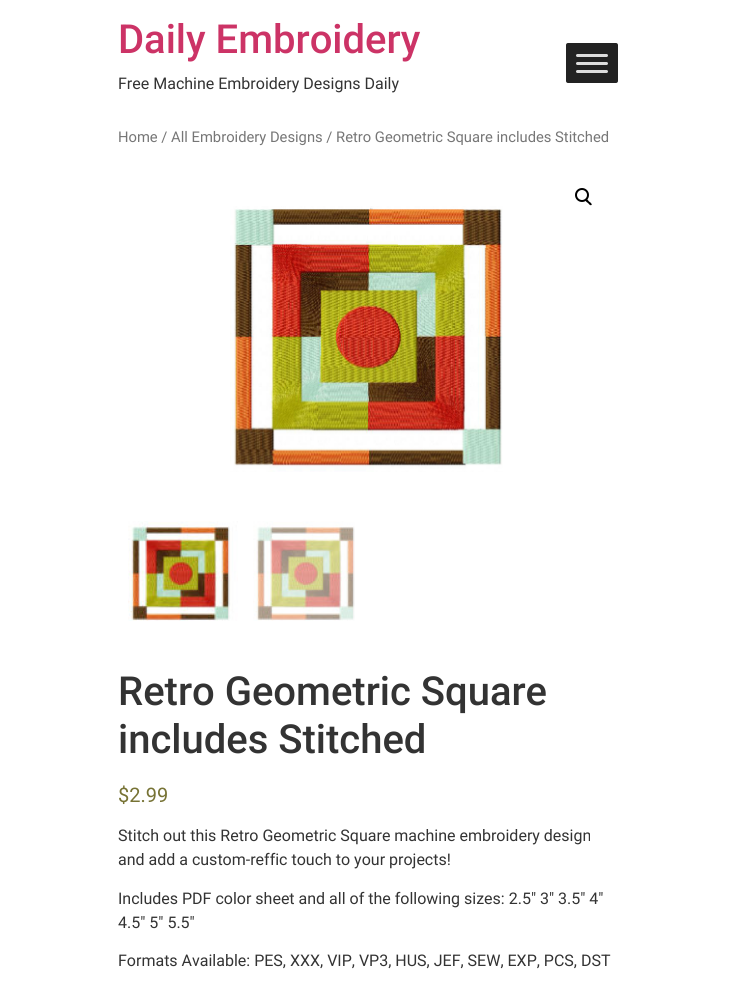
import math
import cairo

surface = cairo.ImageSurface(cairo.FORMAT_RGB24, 735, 989)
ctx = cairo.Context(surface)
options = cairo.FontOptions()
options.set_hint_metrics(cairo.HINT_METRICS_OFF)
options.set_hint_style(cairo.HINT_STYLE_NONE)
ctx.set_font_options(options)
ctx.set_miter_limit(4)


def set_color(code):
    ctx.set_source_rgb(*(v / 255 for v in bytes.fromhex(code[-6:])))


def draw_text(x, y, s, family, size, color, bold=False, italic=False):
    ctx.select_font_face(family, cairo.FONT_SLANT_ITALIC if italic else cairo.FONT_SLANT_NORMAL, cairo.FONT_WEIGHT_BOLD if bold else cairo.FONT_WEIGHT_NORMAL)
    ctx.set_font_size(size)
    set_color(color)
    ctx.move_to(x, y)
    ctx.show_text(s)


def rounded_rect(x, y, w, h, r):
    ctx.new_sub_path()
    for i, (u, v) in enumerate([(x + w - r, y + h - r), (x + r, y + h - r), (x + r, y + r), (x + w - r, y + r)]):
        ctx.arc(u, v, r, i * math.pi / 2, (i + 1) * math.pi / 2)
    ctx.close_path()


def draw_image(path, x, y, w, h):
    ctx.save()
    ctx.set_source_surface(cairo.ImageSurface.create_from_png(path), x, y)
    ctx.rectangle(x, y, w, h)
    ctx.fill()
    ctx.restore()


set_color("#ffffff")
ctx.paint()
draw_text(118, 53, "Daily Embroidery", "Roboto Medium", 40, "#cc3366")
draw_text(118, 89, "Free Machine Embroidery Designs Daily", "Roboto", 16, "#333333")
set_color("#222222")
rounded_rect(566, 43, 52, 40, 2)
ctx.fill()
set_color("#dddddd")
rounded_rect(576, 54, 32, 3, 1.5)
ctx.fill()
rounded_rect(576, 62, 32, 3, 1.5)
ctx.fill()
rounded_rect(576, 70, 32, 3, 1.5)
ctx.fill()
draw_text(118, 142, "Home / All Embroidery Designs / Retro Geometric Square includes Stitched", "Roboto", 14.75, "#767676")
ctx.new_path()
ctx.arc(582, 195, 6, 0, 2 * math.pi)
set_color("#000000")
ctx.stroke()
ctx.new_path()
ctx.move_to(585.5, 199.5)
ctx.curve_to(587, 198, 588.5, 201, 589, 201.5)
ctx.curve_to(590, 202, 592.5, 204, 591.5, 205)
ctx.curve_to(590, 206, 588.5, 203.5, 588, 203)
ctx.curve_to(587, 202.5, 584.5, 200.5, 585.5, 199.5)
ctx.close_path()
ctx.fill()
draw_image("assets/img1.png", 230, 206, 273, 266)
draw_image("assets/img2.png", 128, 521, 110, 100)
draw_image("assets/img3.png", 253, 521, 102, 100)
draw_text(118, 705, "Retro Geometric Square", "Roboto Medium", 40, "#333333")
draw_text(118, 753, "includes Stitched", "Roboto Medium", 40, "#333333")
draw_text(118, 802, "$2.99", "Roboto", 20, "#777335")
draw_text(118, 841, "Stitch out this Retro Geometric Square machine embroidery design", "Roboto", 16, "#333333")
draw_text(118, 865, "and add a custom-reffic touch to your projects!", "Roboto", 16, "#333333")
draw_text(118, 904, "Includes PDF color sheet and all of the following sizes: 2.5″ 3″ 3.5″ 4″", "Roboto", 16, "#333333")
draw_text(118, 928, "4.5″ 5″ 5.5″", "Roboto", 16, "#333333")
draw_text(118, 966, "Formats Available: PES, XXX, VIP, VP3, HUS, JEF, SEW, EXP, PCS, DST", "Roboto", 16, "#333333")
surface.write_to_png("output.png")
